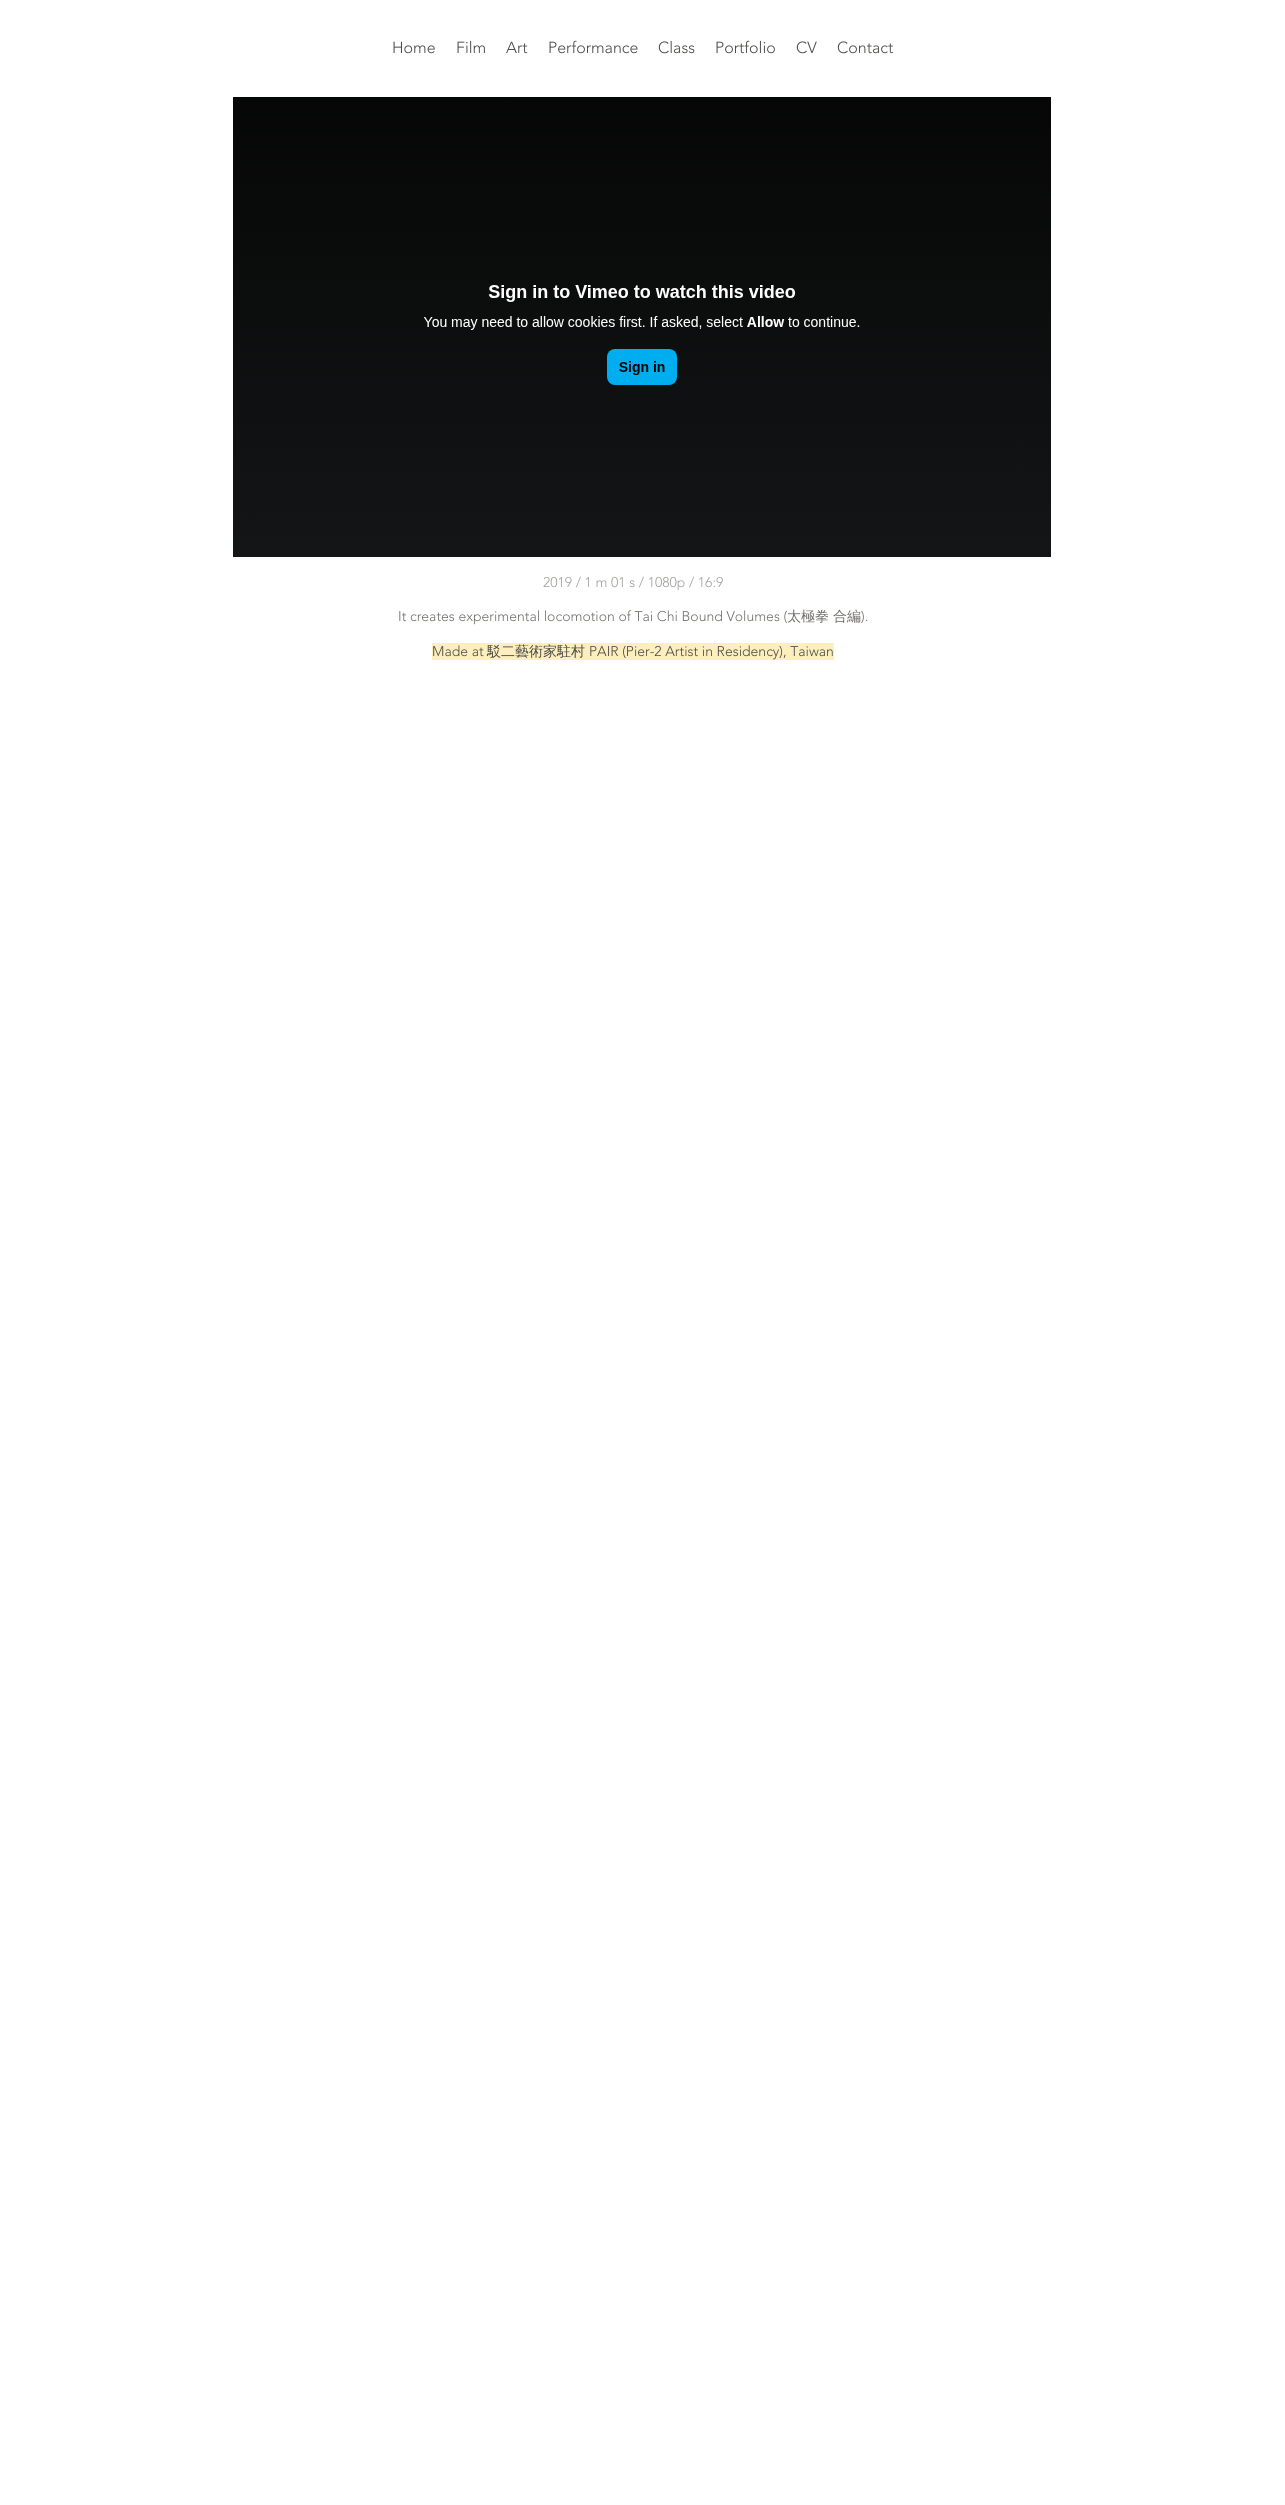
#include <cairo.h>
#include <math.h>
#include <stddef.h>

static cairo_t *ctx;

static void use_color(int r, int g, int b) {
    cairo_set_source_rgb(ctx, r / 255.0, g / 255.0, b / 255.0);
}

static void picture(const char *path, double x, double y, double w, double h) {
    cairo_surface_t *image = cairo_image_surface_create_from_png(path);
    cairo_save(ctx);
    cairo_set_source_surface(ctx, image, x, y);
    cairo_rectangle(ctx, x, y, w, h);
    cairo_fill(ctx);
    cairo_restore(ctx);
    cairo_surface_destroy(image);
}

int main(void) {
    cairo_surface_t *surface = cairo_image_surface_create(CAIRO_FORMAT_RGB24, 1285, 2505);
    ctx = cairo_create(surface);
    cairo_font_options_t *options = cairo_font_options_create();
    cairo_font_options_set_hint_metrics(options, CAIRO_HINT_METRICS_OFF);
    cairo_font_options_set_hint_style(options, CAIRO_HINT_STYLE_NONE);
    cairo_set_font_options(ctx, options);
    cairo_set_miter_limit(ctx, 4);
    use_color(255, 255, 255);
    cairo_paint(ctx);
    cairo_select_font_face(ctx, "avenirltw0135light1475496 Light", CAIRO_FONT_SLANT_NORMAL, CAIRO_FONT_WEIGHT_NORMAL);
    cairo_set_font_size(ctx, 16);
    use_color(75, 74, 71);
    cairo_move_to(ctx, 392, 53);
    cairo_show_text(ctx, "Home");
    cairo_move_to(ctx, 456, 53);
    cairo_show_text(ctx, "Film");
    cairo_move_to(ctx, 506, 53);
    cairo_show_text(ctx, "Art");
    cairo_move_to(ctx, 548, 53);
    cairo_show_text(ctx, "Performance");
    cairo_move_to(ctx, 658, 53);
    cairo_show_text(ctx, "Class");
    cairo_move_to(ctx, 715, 53);
    cairo_show_text(ctx, "Portfolio");
    cairo_move_to(ctx, 796, 53);
    cairo_show_text(ctx, "CV");
    cairo_move_to(ctx, 837, 53);
    cairo_show_text(ctx, "Contact");
    picture("img1.png", 233, 97, 818, 460);
    cairo_set_font_size(ctx, 14);
    use_color(160, 159, 156);
    cairo_move_to(ctx, 543, 587);
    cairo_show_text(ctx, "2019 / 1 m 01 s / 1080p / 16:9");
    use_color(113, 111, 107);
    cairo_move_to(ctx, 398, 621);
    cairo_show_text(ctx, "It creates experimental locomotion of Tai Chi Bound Volumes (");
    cairo_select_font_face(ctx, "WenQuanYi Zen Hei Medium", CAIRO_FONT_SLANT_NORMAL, CAIRO_FONT_WEIGHT_NORMAL);
    cairo_move_to(ctx, 787, 621);
    cairo_show_text(ctx, "太極拳");
    cairo_move_to(ctx, 833, 621);
    cairo_show_text(ctx, "合編");
    cairo_select_font_face(ctx, "avenirltw0135light1475496 Light", CAIRO_FONT_SLANT_NORMAL, CAIRO_FONT_WEIGHT_NORMAL);
    cairo_move_to(ctx, 861, 621);
    cairo_show_text(ctx, ").");
    use_color(252, 239, 189);
    cairo_rectangle(ctx, 432, 643, 402, 17);
    cairo_fill(ctx);
    use_color(75, 74, 71);
    cairo_move_to(ctx, 432, 656);
    cairo_show_text(ctx, "Made at");
    cairo_select_font_face(ctx, "WenQuanYi Zen Hei Medium", CAIRO_FONT_SLANT_NORMAL, CAIRO_FONT_WEIGHT_NORMAL);
    cairo_move_to(ctx, 487, 656);
    cairo_show_text(ctx, "駁二藝術家駐村");
    cairo_select_font_face(ctx, "avenirltw0135light1475496 Light", CAIRO_FONT_SLANT_NORMAL, CAIRO_FONT_WEIGHT_NORMAL);
    cairo_move_to(ctx, 589, 656);
    cairo_show_text(ctx, "PAIR (Pier-2 Artist in Residency), Taiwan");
    cairo_surface_write_to_png(surface, "result.png");
    cairo_font_options_destroy(options);
    cairo_destroy(ctx);
    cairo_surface_destroy(surface);
    return 0;
}
